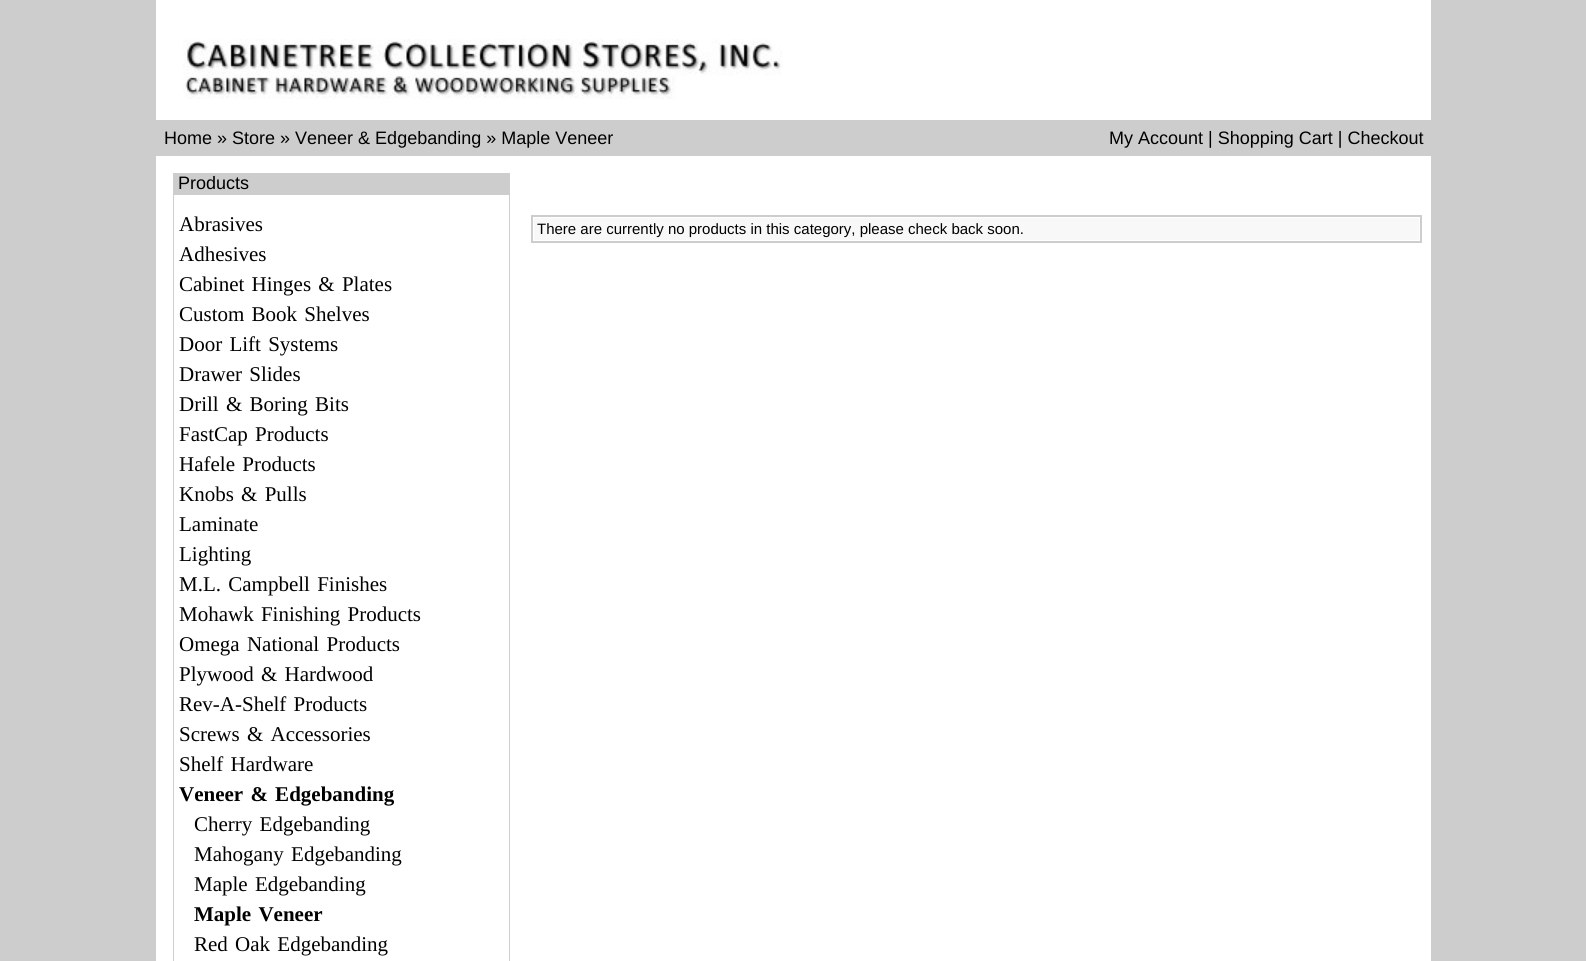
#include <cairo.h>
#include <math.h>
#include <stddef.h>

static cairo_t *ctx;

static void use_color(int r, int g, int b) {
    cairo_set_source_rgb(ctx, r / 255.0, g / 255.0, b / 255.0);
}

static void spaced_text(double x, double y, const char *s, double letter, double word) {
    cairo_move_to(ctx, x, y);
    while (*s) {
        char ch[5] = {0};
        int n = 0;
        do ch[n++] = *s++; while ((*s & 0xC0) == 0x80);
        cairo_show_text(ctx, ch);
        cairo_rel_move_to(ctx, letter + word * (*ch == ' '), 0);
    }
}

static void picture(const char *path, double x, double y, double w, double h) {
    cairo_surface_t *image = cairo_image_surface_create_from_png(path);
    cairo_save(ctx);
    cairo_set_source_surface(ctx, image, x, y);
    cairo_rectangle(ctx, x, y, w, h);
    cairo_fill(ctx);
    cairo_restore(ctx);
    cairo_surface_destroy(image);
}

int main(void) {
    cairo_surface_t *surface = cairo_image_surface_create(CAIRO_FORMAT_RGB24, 1586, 961);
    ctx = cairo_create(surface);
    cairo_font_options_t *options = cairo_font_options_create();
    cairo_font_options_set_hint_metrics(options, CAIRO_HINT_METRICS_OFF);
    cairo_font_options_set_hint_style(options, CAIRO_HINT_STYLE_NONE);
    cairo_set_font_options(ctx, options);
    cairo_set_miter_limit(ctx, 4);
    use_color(205, 205, 205);
    cairo_paint(ctx);
    use_color(255, 255, 255);
    cairo_rectangle(ctx, 156, 0, 1275, 961);
    cairo_fill(ctx);
    picture("img1.png", 183, 39, 600, 60);
    use_color(205, 205, 205);
    cairo_rectangle(ctx, 156, 120, 1275, 36);
    cairo_fill(ctx);
    cairo_select_font_face(ctx, "Liberation Sans", CAIRO_FONT_SLANT_NORMAL, CAIRO_FONT_WEIGHT_NORMAL);
    cairo_set_font_size(ctx, 18);
    use_color(0, 0, 0);
    cairo_move_to(ctx, 164, 144);
    cairo_show_text(ctx, "Home » Store » Veneer & Edgebanding » Maple Veneer");
    cairo_move_to(ctx, 1109, 144);
    cairo_show_text(ctx, "My Account | Shopping Cart | Checkout");
    use_color(205, 205, 205);
    cairo_rectangle(ctx, 173, 173, 337, 788);
    cairo_fill(ctx);
    use_color(0, 0, 0);
    cairo_move_to(ctx, 178, 189);
    cairo_show_text(ctx, "Products");
    use_color(255, 255, 255);
    cairo_rectangle(ctx, 174, 195, 335, 766);
    cairo_fill(ctx);
    cairo_select_font_face(ctx, "Liberation Serif", CAIRO_FONT_SLANT_NORMAL, CAIRO_FONT_WEIGHT_NORMAL);
    cairo_set_font_size(ctx, 21);
    use_color(0, 0, 0);
    cairo_move_to(ctx, 179, 231);
    cairo_show_text(ctx, "Abrasives");
    cairo_move_to(ctx, 179, 261);
    cairo_show_text(ctx, "Adhesives");
    spaced_text(179, 291, "Cabinet Hinges & Plates", 0, 2);
    spaced_text(179, 321, "Custom Book Shelves", 0, 2);
    spaced_text(179, 351, "Door Lift Systems", 0, 2);
    spaced_text(179, 381, "Drawer Slides", 0, 2);
    spaced_text(179, 411, "Drill & Boring Bits", 0, 2);
    spaced_text(179, 441, "FastCap Products", 0, 2);
    spaced_text(179, 471, "Hafele Products", 0, 2);
    spaced_text(179, 501, "Knobs & Pulls", 0, 2);
    cairo_move_to(ctx, 179, 531);
    cairo_show_text(ctx, "Laminate");
    cairo_move_to(ctx, 179, 561);
    cairo_show_text(ctx, "Lighting");
    spaced_text(179, 591, "M.L. Campbell Finishes", 0, 2);
    spaced_text(179, 621, "Mohawk Finishing Products", 0, 2);
    spaced_text(179, 651, "Omega National Products", 0, 2);
    spaced_text(179, 681, "Plywood & Hardwood", 0, 2);
    spaced_text(179, 711, "Rev-A-Shelf Products", 0, 2);
    spaced_text(179, 741, "Screws & Accessories", 0, 2);
    spaced_text(179, 771, "Shelf Hardware", 0, 2);
    cairo_select_font_face(ctx, "Liberation Serif", CAIRO_FONT_SLANT_NORMAL, CAIRO_FONT_WEIGHT_BOLD);
    spaced_text(179, 801, "Veneer & Edgebanding", 0, 2);
    cairo_select_font_face(ctx, "Liberation Serif", CAIRO_FONT_SLANT_NORMAL, CAIRO_FONT_WEIGHT_NORMAL);
    spaced_text(194, 831, "Cherry Edgebanding", 0, 2);
    spaced_text(194, 861, "Mahogany Edgebanding", 0, 2);
    spaced_text(194, 891, "Maple Edgebanding", 0, 2);
    cairo_select_font_face(ctx, "Liberation Serif", CAIRO_FONT_SLANT_NORMAL, CAIRO_FONT_WEIGHT_BOLD);
    spaced_text(194, 921, "Maple Veneer", 0, 2);
    cairo_select_font_face(ctx, "Liberation Serif", CAIRO_FONT_SLANT_NORMAL, CAIRO_FONT_WEIGHT_NORMAL);
    spaced_text(194, 951, "Red Oak Edgebanding", 0, 2);
    cairo_rectangle(ctx, 532, 216, 889, 26);
    use_color(205, 205, 205);
    cairo_stroke(ctx);
    use_color(248, 248, 249);
    cairo_rectangle(ctx, 534, 218, 885, 22);
    cairo_fill(ctx);
    cairo_select_font_face(ctx, "Liberation Sans", CAIRO_FONT_SLANT_NORMAL, CAIRO_FONT_WEIGHT_NORMAL);
    cairo_set_font_size(ctx, 15);
    use_color(0, 0, 0);
    cairo_move_to(ctx, 537, 234);
    cairo_show_text(ctx, "There are currently no products in this category, please check back soon.");
    cairo_surface_write_to_png(surface, "result.png");
    cairo_font_options_destroy(options);
    cairo_destroy(ctx);
    cairo_surface_destroy(surface);
    return 0;
}
